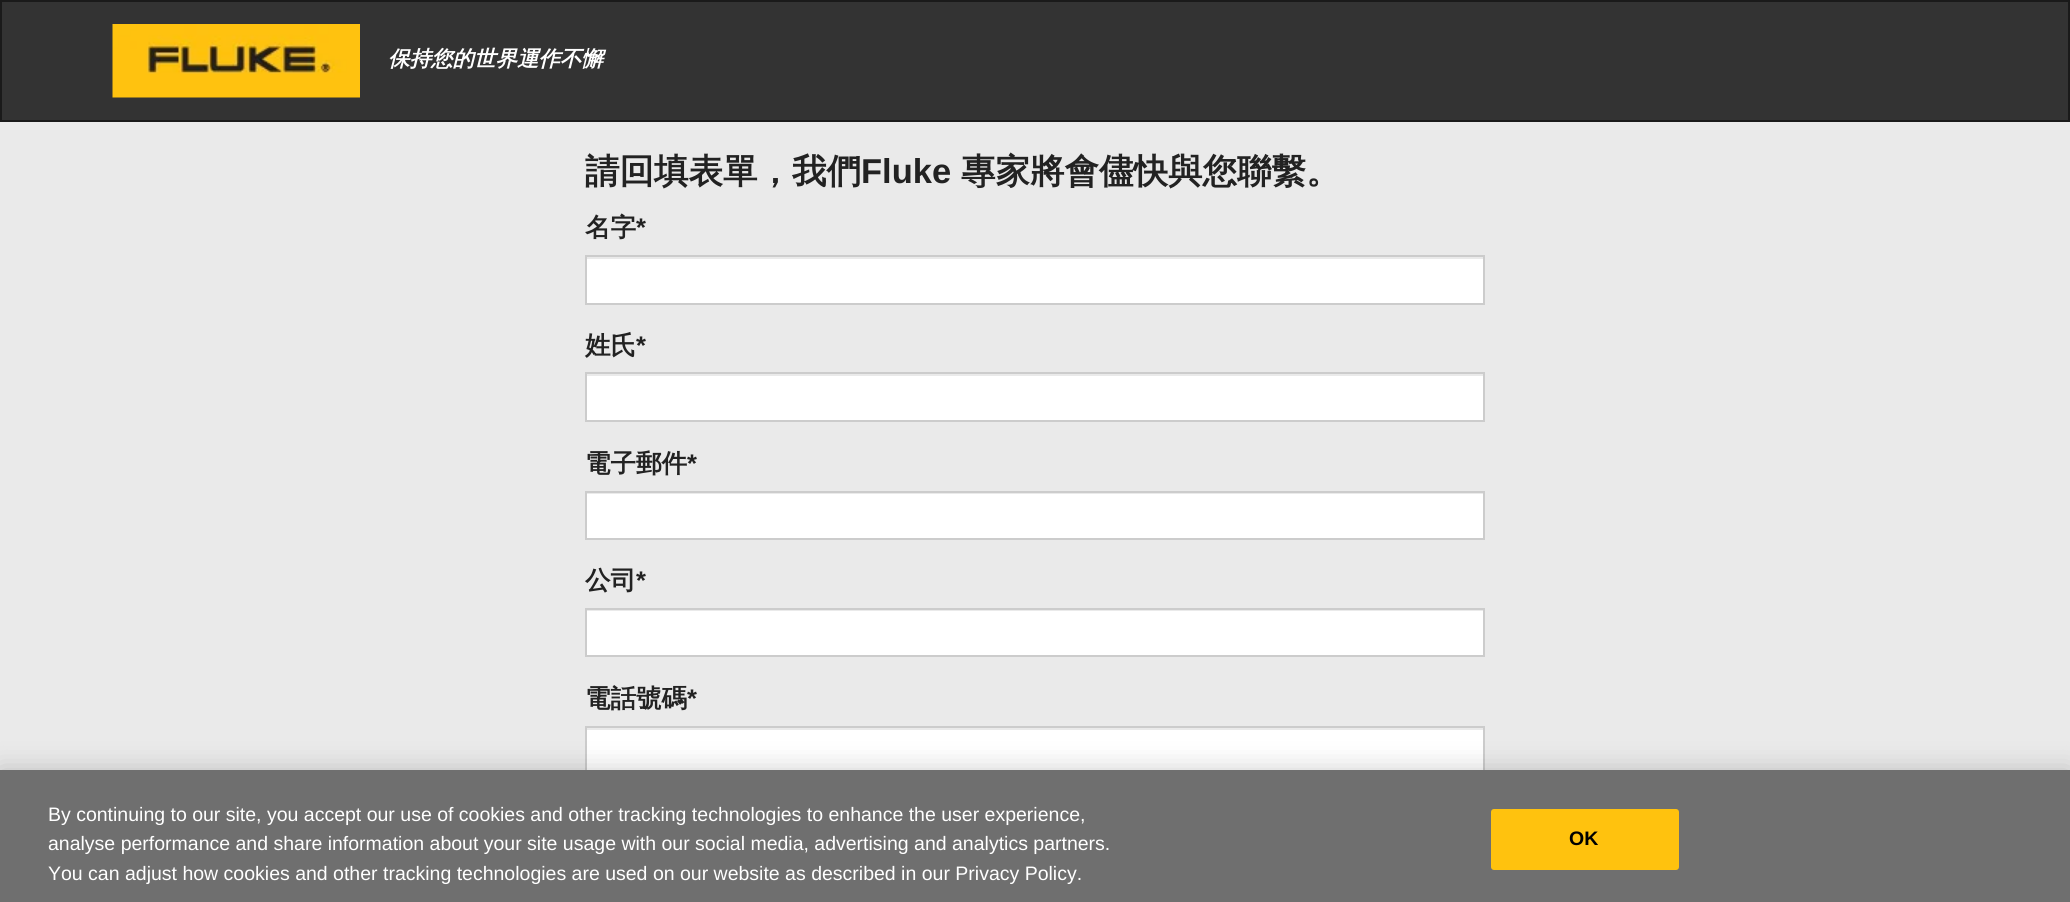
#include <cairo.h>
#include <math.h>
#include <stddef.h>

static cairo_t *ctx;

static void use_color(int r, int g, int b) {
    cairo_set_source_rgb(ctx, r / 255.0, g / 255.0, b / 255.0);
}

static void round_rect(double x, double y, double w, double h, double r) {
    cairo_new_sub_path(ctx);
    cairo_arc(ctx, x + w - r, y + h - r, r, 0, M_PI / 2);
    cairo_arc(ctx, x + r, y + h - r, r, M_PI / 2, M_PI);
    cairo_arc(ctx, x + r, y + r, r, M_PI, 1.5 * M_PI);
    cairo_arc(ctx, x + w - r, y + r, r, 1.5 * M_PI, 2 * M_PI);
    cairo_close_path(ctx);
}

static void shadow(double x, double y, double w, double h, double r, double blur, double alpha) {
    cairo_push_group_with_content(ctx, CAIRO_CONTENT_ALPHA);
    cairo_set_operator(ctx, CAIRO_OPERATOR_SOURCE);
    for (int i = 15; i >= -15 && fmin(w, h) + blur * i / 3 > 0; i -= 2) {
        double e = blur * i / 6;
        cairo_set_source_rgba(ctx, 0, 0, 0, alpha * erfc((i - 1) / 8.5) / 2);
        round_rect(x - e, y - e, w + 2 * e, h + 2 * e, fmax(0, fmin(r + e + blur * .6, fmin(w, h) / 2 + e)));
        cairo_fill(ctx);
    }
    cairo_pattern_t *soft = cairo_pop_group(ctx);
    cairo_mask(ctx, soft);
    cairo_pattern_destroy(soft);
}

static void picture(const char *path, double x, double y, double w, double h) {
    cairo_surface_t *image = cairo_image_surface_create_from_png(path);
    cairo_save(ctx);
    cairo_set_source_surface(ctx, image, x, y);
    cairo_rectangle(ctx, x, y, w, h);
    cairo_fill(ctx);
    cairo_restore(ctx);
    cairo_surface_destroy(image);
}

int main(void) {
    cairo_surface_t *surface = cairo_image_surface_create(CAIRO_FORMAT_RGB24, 2070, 902);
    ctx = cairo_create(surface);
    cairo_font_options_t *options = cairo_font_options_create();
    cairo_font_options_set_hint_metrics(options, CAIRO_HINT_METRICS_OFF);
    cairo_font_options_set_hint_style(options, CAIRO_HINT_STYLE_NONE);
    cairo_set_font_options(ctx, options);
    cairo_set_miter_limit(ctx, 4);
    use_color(234, 234, 234);
    cairo_paint(ctx);
    use_color(51, 51, 51);
    cairo_rectangle(ctx, 1, 1, 2068, 120);
    cairo_fill_preserve(ctx);
    use_color(26, 26, 26);
    cairo_stroke(ctx);
    picture("img1.png", 112, 24, 248, 74);
    cairo_select_font_face(ctx, "WenQuanYi Zen Hei", CAIRO_FONT_SLANT_ITALIC, CAIRO_FONT_WEIGHT_BOLD);
    cairo_set_font_size(ctx, 21.5);
    use_color(255, 255, 255);
    cairo_move_to(ctx, 388, 66);
    cairo_show_text(ctx, "保持您的世界運作不懈");
    cairo_select_font_face(ctx, "WenQuanYi Zen Hei", CAIRO_FONT_SLANT_NORMAL, CAIRO_FONT_WEIGHT_BOLD);
    cairo_set_font_size(ctx, 34.5);
    use_color(34, 34, 34);
    cairo_move_to(ctx, 585, 183);
    cairo_show_text(ctx, "請回填表單，我們");
    cairo_select_font_face(ctx, "Liberation Sans", CAIRO_FONT_SLANT_NORMAL, CAIRO_FONT_WEIGHT_BOLD);
    cairo_move_to(ctx, 861, 183);
    cairo_show_text(ctx, "Fluke");
    cairo_select_font_face(ctx, "WenQuanYi Zen Hei", CAIRO_FONT_SLANT_NORMAL, CAIRO_FONT_WEIGHT_BOLD);
    cairo_move_to(ctx, 961, 183);
    cairo_show_text(ctx, "專家將會儘快與您聯繫。");
    cairo_set_font_size(ctx, 25.5);
    cairo_move_to(ctx, 585, 236);
    cairo_show_text(ctx, "名字");
    cairo_select_font_face(ctx, "Liberation Sans", CAIRO_FONT_SLANT_NORMAL, CAIRO_FONT_WEIGHT_BOLD);
    cairo_move_to(ctx, 636, 236);
    cairo_show_text(ctx, "*");
    use_color(255, 255, 255);
    cairo_rectangle(ctx, 587, 259, 896, 44);
    cairo_fill(ctx);
    cairo_rectangle(ctx, 586, 256, 898, 48);
    use_color(204, 204, 204);
    cairo_stroke(ctx);
    cairo_select_font_face(ctx, "WenQuanYi Zen Hei", CAIRO_FONT_SLANT_NORMAL, CAIRO_FONT_WEIGHT_BOLD);
    use_color(34, 34, 34);
    cairo_move_to(ctx, 585, 354);
    cairo_show_text(ctx, "姓氏");
    cairo_select_font_face(ctx, "Liberation Sans", CAIRO_FONT_SLANT_NORMAL, CAIRO_FONT_WEIGHT_BOLD);
    cairo_move_to(ctx, 636, 354);
    cairo_show_text(ctx, "*");
    use_color(255, 255, 255);
    cairo_rectangle(ctx, 587, 376, 896, 44);
    cairo_fill(ctx);
    cairo_rectangle(ctx, 586, 373, 898, 48);
    use_color(204, 204, 204);
    cairo_stroke(ctx);
    cairo_select_font_face(ctx, "WenQuanYi Zen Hei", CAIRO_FONT_SLANT_NORMAL, CAIRO_FONT_WEIGHT_BOLD);
    use_color(34, 34, 34);
    cairo_move_to(ctx, 585, 472);
    cairo_show_text(ctx, "電子郵件");
    cairo_select_font_face(ctx, "Liberation Sans", CAIRO_FONT_SLANT_NORMAL, CAIRO_FONT_WEIGHT_BOLD);
    cairo_move_to(ctx, 687, 472);
    cairo_show_text(ctx, "*");
    use_color(255, 255, 255);
    cairo_rectangle(ctx, 587, 494, 896, 44);
    cairo_fill(ctx);
    cairo_rectangle(ctx, 586, 492, 898, 47);
    use_color(204, 204, 204);
    cairo_stroke(ctx);
    cairo_select_font_face(ctx, "WenQuanYi Zen Hei", CAIRO_FONT_SLANT_NORMAL, CAIRO_FONT_WEIGHT_BOLD);
    use_color(34, 34, 34);
    cairo_move_to(ctx, 585, 589);
    cairo_show_text(ctx, "公司");
    cairo_select_font_face(ctx, "Liberation Sans", CAIRO_FONT_SLANT_NORMAL, CAIRO_FONT_WEIGHT_BOLD);
    cairo_move_to(ctx, 636, 589);
    cairo_show_text(ctx, "*");
    use_color(255, 255, 255);
    cairo_rectangle(ctx, 587, 611, 896, 44);
    cairo_fill(ctx);
    cairo_rectangle(ctx, 586, 609, 898, 47);
    use_color(204, 204, 204);
    cairo_stroke(ctx);
    cairo_select_font_face(ctx, "WenQuanYi Zen Hei", CAIRO_FONT_SLANT_NORMAL, CAIRO_FONT_WEIGHT_BOLD);
    use_color(34, 34, 34);
    cairo_move_to(ctx, 585, 707);
    cairo_show_text(ctx, "電話號碼");
    cairo_select_font_face(ctx, "Liberation Sans", CAIRO_FONT_SLANT_NORMAL, CAIRO_FONT_WEIGHT_BOLD);
    cairo_move_to(ctx, 687, 707);
    cairo_show_text(ctx, "*");
    use_color(255, 255, 255);
    cairo_rectangle(ctx, 587, 730, 896, 40);
    cairo_fill(ctx);
    cairo_rectangle(ctx, 586, 727, 898, 48);
    use_color(204, 204, 204);
    cairo_stroke(ctx);
    use_color(0, 0, 0);
    shadow(0, 770, 2070, 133, 0, 13.5, 0.2);
    use_color(111, 111, 111);
    cairo_rectangle(ctx, 0, 770, 2070, 132);
    cairo_fill(ctx);
    cairo_select_font_face(ctx, "Liberation Sans", CAIRO_FONT_SLANT_NORMAL, CAIRO_FONT_WEIGHT_NORMAL);
    cairo_set_font_size(ctx, 19.5);
    use_color(255, 255, 255);
    cairo_move_to(ctx, 48, 821);
    cairo_show_text(ctx, "By continuing to our site, you accept our use of cookies and other tracking technologies to enhance the user experience,");
    cairo_move_to(ctx, 48, 850);
    cairo_show_text(ctx, "analyse performance and share information about your site usage with our social media, advertising and analytics partners.");
    cairo_move_to(ctx, 48, 880);
    cairo_show_text(ctx, "You can adjust how cookies and other tracking technologies are used on our website as described in our Privacy Policy.");
    use_color(255, 194, 14);
    round_rect(1492, 810, 186, 59, 2);
    cairo_fill_preserve(ctx);
    cairo_stroke(ctx);
    cairo_select_font_face(ctx, "Liberation Sans", CAIRO_FONT_SLANT_NORMAL, CAIRO_FONT_WEIGHT_BOLD);
    use_color(0, 0, 0);
    cairo_move_to(ctx, 1569, 845);
    cairo_show_text(ctx, "OK");
    cairo_surface_write_to_png(surface, "result.png");
    cairo_font_options_destroy(options);
    cairo_destroy(ctx);
    cairo_surface_destroy(surface);
    return 0;
}
